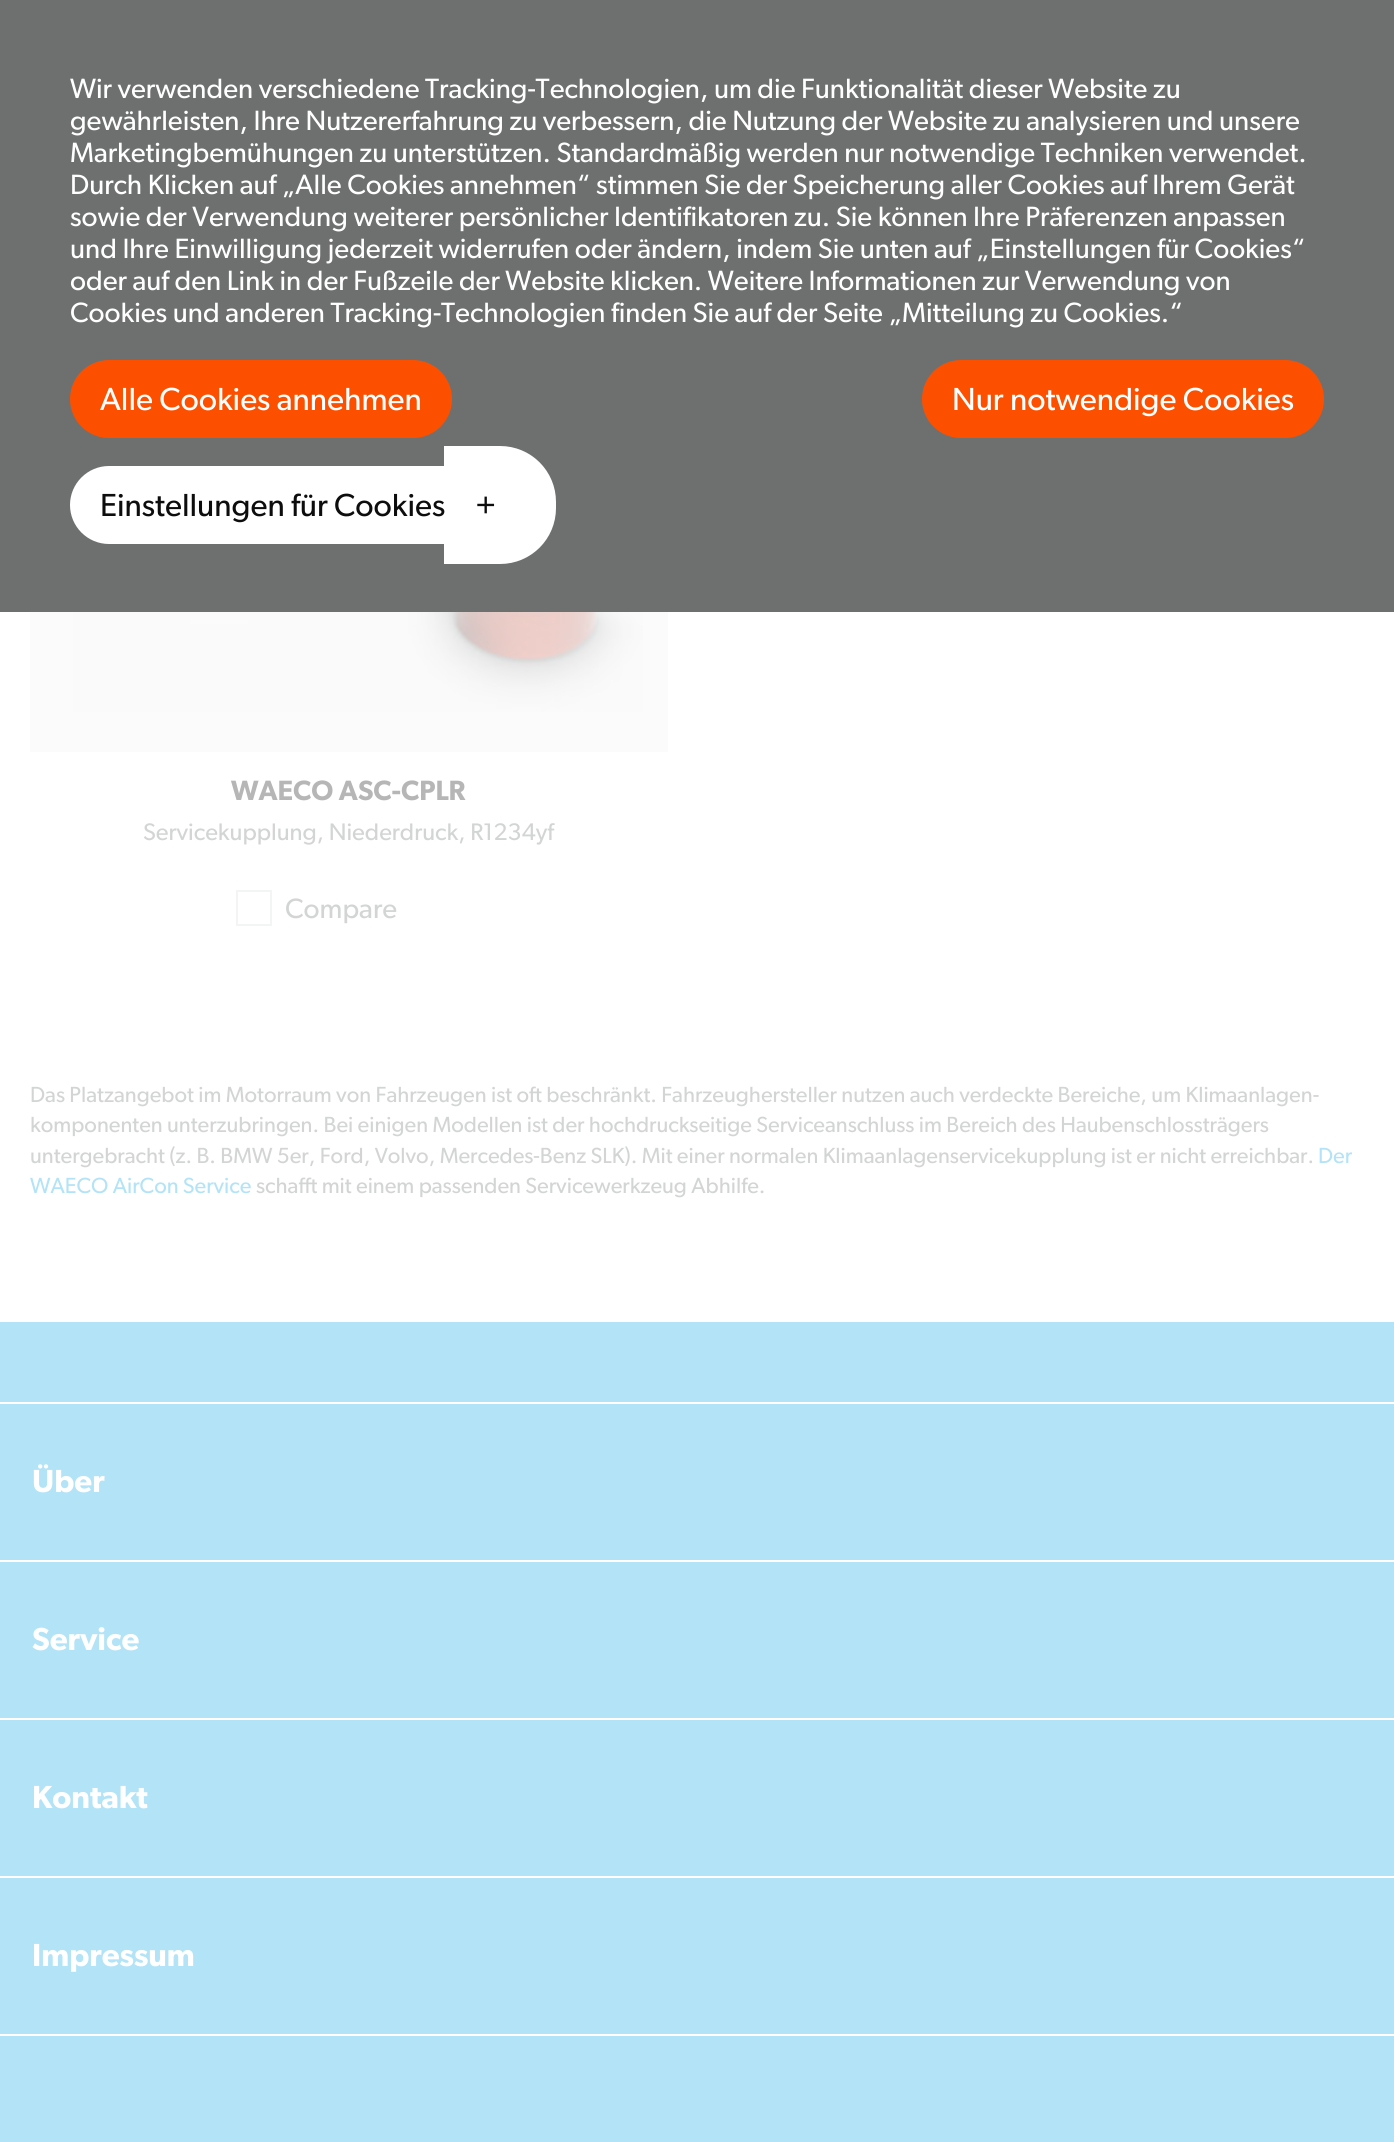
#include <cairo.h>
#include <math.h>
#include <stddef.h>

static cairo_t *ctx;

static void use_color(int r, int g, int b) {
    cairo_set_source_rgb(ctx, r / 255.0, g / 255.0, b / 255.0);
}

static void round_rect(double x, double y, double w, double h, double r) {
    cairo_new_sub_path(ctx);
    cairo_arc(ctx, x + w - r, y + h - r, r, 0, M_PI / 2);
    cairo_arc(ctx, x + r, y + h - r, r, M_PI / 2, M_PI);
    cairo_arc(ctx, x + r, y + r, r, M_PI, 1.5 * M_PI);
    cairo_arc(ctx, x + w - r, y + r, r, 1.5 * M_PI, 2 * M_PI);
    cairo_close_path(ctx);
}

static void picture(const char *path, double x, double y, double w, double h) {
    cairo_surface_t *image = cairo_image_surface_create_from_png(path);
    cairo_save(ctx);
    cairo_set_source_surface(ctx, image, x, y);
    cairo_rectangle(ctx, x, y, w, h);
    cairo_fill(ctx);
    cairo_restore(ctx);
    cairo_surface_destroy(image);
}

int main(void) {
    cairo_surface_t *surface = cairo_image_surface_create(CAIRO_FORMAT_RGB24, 1394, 2142);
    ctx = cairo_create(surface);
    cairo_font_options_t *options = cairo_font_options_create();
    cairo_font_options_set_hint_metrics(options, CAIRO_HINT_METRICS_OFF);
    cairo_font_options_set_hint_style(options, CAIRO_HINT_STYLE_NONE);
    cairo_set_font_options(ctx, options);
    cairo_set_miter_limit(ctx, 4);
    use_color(255, 255, 255);
    cairo_paint(ctx);
    use_color(109, 112, 111);
    cairo_rectangle(ctx, 0, 0, 1394, 612);
    cairo_fill(ctx);
    cairo_select_font_face(ctx, "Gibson", CAIRO_FONT_SLANT_NORMAL, CAIRO_FONT_WEIGHT_NORMAL);
    cairo_set_font_size(ctx, 28);
    use_color(255, 255, 255);
    cairo_move_to(ctx, 70, 98);
    cairo_show_text(ctx, "Wir verwenden verschiedene Tracking-Technologien, um die Funktionalität dieser Website zu");
    cairo_move_to(ctx, 70, 130);
    cairo_show_text(ctx, "gewährleisten, Ihre Nutzererfahrung zu verbessern, die Nutzung der Website zu analysieren und unsere");
    cairo_move_to(ctx, 70, 162);
    cairo_show_text(ctx, "Marketingbemühungen zu unterstützen. Standardmäßig werden nur notwendige Techniken verwendet.");
    cairo_move_to(ctx, 70, 194);
    cairo_show_text(ctx, "Durch Klicken auf „Alle Cookies annehmen“ stimmen Sie der Speicherung aller Cookies auf Ihrem Gerät");
    cairo_move_to(ctx, 70, 226);
    cairo_show_text(ctx, "sowie der Verwendung weiterer persönlicher Identifikatoren zu. Sie können Ihre Präferenzen anpassen");
    cairo_move_to(ctx, 70, 258);
    cairo_show_text(ctx, "und Ihre Einwilligung jederzeit widerrufen oder ändern, indem Sie unten auf „Einstellungen für Cookies“");
    cairo_move_to(ctx, 70, 290);
    cairo_show_text(ctx, "oder auf den Link in der Fußzeile der Website klicken. Weitere Informationen zur Verwendung von");
    cairo_move_to(ctx, 70, 322);
    cairo_show_text(ctx, "Cookies und anderen Tracking-Technologien finden Sie auf der Seite „Mitteilung zu Cookies.“");
    use_color(252, 80, 0);
    round_rect(70, 360, 382, 78, 39);
    cairo_fill(ctx);
    cairo_set_font_size(ctx, 32);
    use_color(255, 255, 255);
    cairo_move_to(ctx, 100, 410);
    cairo_show_text(ctx, "Alle Cookies annehmen");
    use_color(252, 80, 0);
    round_rect(922, 360, 402, 78, 39);
    cairo_fill(ctx);
    use_color(255, 255, 255);
    cairo_move_to(ctx, 952, 410);
    cairo_show_text(ctx, "Nur notwendige Cookies");
    cairo_new_path(ctx);
    cairo_move_to(ctx, 109, 466);
    cairo_line_to(ctx, 444, 466);
    cairo_line_to(ctx, 444, 544);
    cairo_line_to(ctx, 109, 544);
    cairo_curve_to(ctx, 87.5, 544, 70, 526.5, 70, 505);
    cairo_curve_to(ctx, 70, 483.5, 87.5, 466, 109, 466);
    cairo_close_path(ctx);
    cairo_fill(ctx);
    cairo_new_path(ctx);
    cairo_move_to(ctx, 444, 446);
    cairo_line_to(ctx, 500, 446);
    cairo_curve_to(ctx, 531, 446, 556, 471, 556, 502);
    cairo_line_to(ctx, 556, 508);
    cairo_curve_to(ctx, 556, 539, 531, 564, 500, 564);
    cairo_line_to(ctx, 444, 564);
    cairo_close_path(ctx);
    cairo_fill(ctx);
    use_color(13, 13, 13);
    cairo_move_to(ctx, 100, 516);
    cairo_show_text(ctx, "Einstellungen für Cookies");
    cairo_move_to(ctx, 475, 516);
    cairo_show_text(ctx, "+");
    use_color(251, 251, 251);
    cairo_rectangle(ctx, 30, 612, 638, 140);
    cairo_fill(ctx);
    picture("img1.png", 73, 612, 570, 100);
    cairo_select_font_face(ctx, "Gibson SemiBold", CAIRO_FONT_SLANT_NORMAL, CAIRO_FONT_WEIGHT_NORMAL);
    cairo_set_font_size(ctx, 28);
    use_color(182, 182, 182);
    cairo_move_to(ctx, 231, 800);
    cairo_show_text(ctx, "WAECO ASC-CPLR");
    cairo_select_font_face(ctx, "Gibson", CAIRO_FONT_SLANT_NORMAL, CAIRO_FONT_WEIGHT_NORMAL);
    cairo_set_font_size(ctx, 24);
    use_color(211, 212, 212);
    cairo_move_to(ctx, 143, 840);
    cairo_show_text(ctx, "Servicekupplung, Niederdruck, R1234yf");
    cairo_rectangle(ctx, 237, 891, 34, 34);
    use_color(243, 244, 244);
    cairo_stroke(ctx);
    cairo_set_font_size(ctx, 28);
    use_color(211, 212, 212);
    cairo_move_to(ctx, 285, 918);
    cairo_show_text(ctx, "Compare");
    cairo_set_font_size(ctx, 22);
    cairo_move_to(ctx, 30, 1102);
    cairo_show_text(ctx, "Das Platzangebot im Motorraum von Fahrzeugen ist oft beschränkt. Fahrzeughersteller nutzen auch verdeckte Bereiche, um Klimaanlagen-");
    cairo_move_to(ctx, 30, 1132);
    cairo_show_text(ctx, "komponenten unterzubringen. Bei einigen Modellen ist der hochdruckseitige Serviceanschluss im Bereich des Haubenschlossträgers");
    cairo_move_to(ctx, 30, 1163);
    cairo_show_text(ctx, "untergebracht (z. B. BMW 5er, Ford, Volvo, Mercedes-Benz SLK). Mit einer normalen Klimaanlagenservicekupplung ist er nicht erreichbar.");
    use_color(179, 227, 246);
    cairo_move_to(ctx, 1318, 1163);
    cairo_show_text(ctx, "Der");
    cairo_move_to(ctx, 30, 1193);
    cairo_show_text(ctx, "WAECO AirCon Service");
    use_color(211, 212, 212);
    cairo_move_to(ctx, 256, 1193);
    cairo_show_text(ctx, "schafft mit einem passenden Servicewerkzeug Abhilfe.");
    use_color(179, 227, 246);
    cairo_rectangle(ctx, 0, 1322, 1394, 820);
    cairo_fill(ctx);
    use_color(255, 255, 255);
    cairo_rectangle(ctx, 0, 1402, 1394, 2);
    cairo_fill(ctx);
    cairo_rectangle(ctx, 0, 1560, 1394, 2);
    cairo_fill(ctx);
    cairo_select_font_face(ctx, "Gibson SemiBold", CAIRO_FONT_SLANT_NORMAL, CAIRO_FONT_WEIGHT_NORMAL);
    cairo_set_font_size(ctx, 32);
    cairo_move_to(ctx, 32, 1492);
    cairo_show_text(ctx, "Über");
    cairo_rectangle(ctx, 0, 1718, 1394, 2);
    cairo_fill(ctx);
    cairo_move_to(ctx, 32, 1650);
    cairo_show_text(ctx, "Service");
    cairo_rectangle(ctx, 0, 1876, 1394, 2);
    cairo_fill(ctx);
    cairo_move_to(ctx, 32, 1808);
    cairo_show_text(ctx, "Kontakt");
    cairo_rectangle(ctx, 0, 2034, 1394, 2);
    cairo_fill(ctx);
    cairo_move_to(ctx, 32, 1966);
    cairo_show_text(ctx, "Impressum");
    cairo_surface_write_to_png(surface, "result.png");
    cairo_font_options_destroy(options);
    cairo_destroy(ctx);
    cairo_surface_destroy(surface);
    return 0;
}
